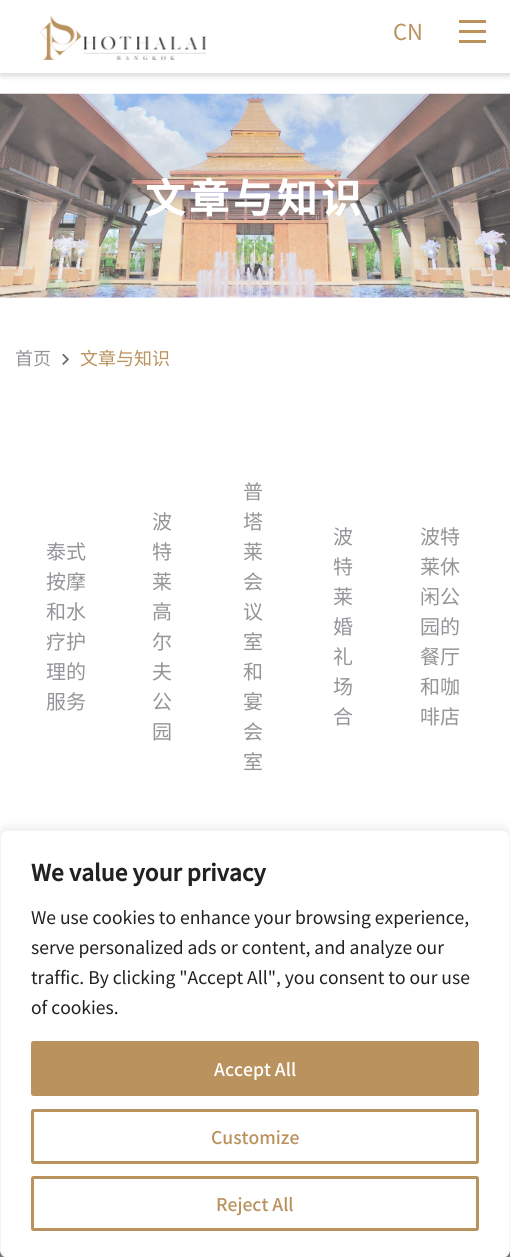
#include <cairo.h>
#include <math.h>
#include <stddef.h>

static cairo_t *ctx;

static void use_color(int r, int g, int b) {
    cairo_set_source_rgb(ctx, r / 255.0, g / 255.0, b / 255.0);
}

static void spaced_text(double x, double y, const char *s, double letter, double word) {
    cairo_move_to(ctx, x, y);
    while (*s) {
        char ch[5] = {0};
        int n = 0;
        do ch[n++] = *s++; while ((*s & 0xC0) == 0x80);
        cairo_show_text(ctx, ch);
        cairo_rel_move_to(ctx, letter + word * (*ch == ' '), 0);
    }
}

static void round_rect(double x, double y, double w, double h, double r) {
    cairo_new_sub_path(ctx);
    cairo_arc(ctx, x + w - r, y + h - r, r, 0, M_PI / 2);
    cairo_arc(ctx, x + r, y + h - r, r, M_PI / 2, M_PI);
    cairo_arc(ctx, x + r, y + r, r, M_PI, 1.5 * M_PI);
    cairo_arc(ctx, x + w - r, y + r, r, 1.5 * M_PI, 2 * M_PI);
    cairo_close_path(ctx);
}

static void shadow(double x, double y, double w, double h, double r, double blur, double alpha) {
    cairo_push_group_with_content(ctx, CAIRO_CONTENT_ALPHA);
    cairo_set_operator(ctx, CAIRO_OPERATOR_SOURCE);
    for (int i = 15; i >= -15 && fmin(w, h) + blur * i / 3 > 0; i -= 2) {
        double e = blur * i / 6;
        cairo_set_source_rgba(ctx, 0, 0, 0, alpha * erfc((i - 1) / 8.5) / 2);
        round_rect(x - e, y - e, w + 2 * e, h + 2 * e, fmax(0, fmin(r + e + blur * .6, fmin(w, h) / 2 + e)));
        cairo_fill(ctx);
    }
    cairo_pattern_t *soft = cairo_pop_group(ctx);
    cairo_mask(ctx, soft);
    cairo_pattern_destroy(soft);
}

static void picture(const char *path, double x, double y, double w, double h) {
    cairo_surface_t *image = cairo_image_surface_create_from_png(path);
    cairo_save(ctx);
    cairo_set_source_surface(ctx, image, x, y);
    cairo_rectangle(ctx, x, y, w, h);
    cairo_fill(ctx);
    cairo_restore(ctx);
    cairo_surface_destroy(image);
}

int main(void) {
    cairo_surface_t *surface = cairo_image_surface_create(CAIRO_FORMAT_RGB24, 510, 1257);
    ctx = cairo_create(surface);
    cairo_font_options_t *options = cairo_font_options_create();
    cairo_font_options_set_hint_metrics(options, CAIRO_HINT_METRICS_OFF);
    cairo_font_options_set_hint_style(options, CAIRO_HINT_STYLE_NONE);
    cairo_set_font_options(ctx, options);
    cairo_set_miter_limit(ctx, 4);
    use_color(255, 255, 255);
    cairo_paint(ctx);
    use_color(0, 0, 0);
    shadow(0, 1, 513, 75, 0, 3, 0.15);
    use_color(255, 255, 255);
    cairo_rectangle(ctx, 0, 0, 510, 73);
    cairo_fill(ctx);
    picture("img1.png", 40, 15, 167, 45);
    cairo_select_font_face(ctx, "Noto Sans SC", CAIRO_FONT_SLANT_NORMAL, CAIRO_FONT_WEIGHT_NORMAL);
    cairo_set_font_size(ctx, 22);
    use_color(186, 146, 94);
    cairo_move_to(ctx, 393, 40);
    cairo_show_text(ctx, "CN");
    cairo_rectangle(ctx, 459, 20, 27, 3);
    cairo_fill(ctx);
    cairo_rectangle(ctx, 459, 30, 27, 3);
    cairo_fill(ctx);
    cairo_rectangle(ctx, 459, 40, 27, 3);
    cairo_fill(ctx);
    picture("img2.png", 0, 93, 510, 205);
    cairo_select_font_face(ctx, "Noto Sans SC", CAIRO_FONT_SLANT_NORMAL, CAIRO_FONT_WEIGHT_BOLD);
    cairo_set_font_size(ctx, 40);
    use_color(255, 255, 255);
    spaced_text(145, 213, "文章与知识", 4, 0);
    cairo_select_font_face(ctx, "Noto Sans SC", CAIRO_FONT_SLANT_NORMAL, CAIRO_FONT_WEIGHT_NORMAL);
    cairo_set_font_size(ctx, 18);
    use_color(147, 149, 152);
    cairo_move_to(ctx, 15, 365);
    cairo_show_text(ctx, "首页");
    picture("img3.png", 62, 354, 7, 11);
    use_color(186, 146, 94);
    cairo_move_to(ctx, 80, 365);
    cairo_show_text(ctx, "文章与知识");
    cairo_set_font_size(ctx, 20);
    use_color(147, 149, 152);
    cairo_move_to(ctx, 46, 559);
    cairo_show_text(ctx, "泰式");
    cairo_move_to(ctx, 46, 589);
    cairo_show_text(ctx, "按摩");
    cairo_move_to(ctx, 46, 619);
    cairo_show_text(ctx, "和水");
    cairo_move_to(ctx, 46, 649);
    cairo_show_text(ctx, "疗护");
    cairo_move_to(ctx, 46, 679);
    cairo_show_text(ctx, "理的");
    cairo_move_to(ctx, 46, 709);
    cairo_show_text(ctx, "服务");
    cairo_move_to(ctx, 152, 529);
    cairo_show_text(ctx, "波");
    cairo_move_to(ctx, 152, 559);
    cairo_show_text(ctx, "特");
    cairo_move_to(ctx, 152, 589);
    cairo_show_text(ctx, "莱");
    cairo_move_to(ctx, 152, 619);
    cairo_show_text(ctx, "高");
    cairo_move_to(ctx, 152, 649);
    cairo_show_text(ctx, "尔");
    cairo_move_to(ctx, 152, 679);
    cairo_show_text(ctx, "夫");
    cairo_move_to(ctx, 152, 709);
    cairo_show_text(ctx, "公");
    cairo_move_to(ctx, 152, 739);
    cairo_show_text(ctx, "园");
    cairo_move_to(ctx, 243, 499);
    cairo_show_text(ctx, "普");
    cairo_move_to(ctx, 243, 529);
    cairo_show_text(ctx, "塔");
    cairo_move_to(ctx, 243, 559);
    cairo_show_text(ctx, "莱");
    cairo_move_to(ctx, 243, 589);
    cairo_show_text(ctx, "会");
    cairo_move_to(ctx, 243, 619);
    cairo_show_text(ctx, "议");
    cairo_move_to(ctx, 243, 649);
    cairo_show_text(ctx, "室");
    cairo_move_to(ctx, 243, 679);
    cairo_show_text(ctx, "和");
    cairo_move_to(ctx, 243, 709);
    cairo_show_text(ctx, "宴");
    cairo_move_to(ctx, 243, 739);
    cairo_show_text(ctx, "会");
    cairo_move_to(ctx, 243, 769);
    cairo_show_text(ctx, "室");
    cairo_move_to(ctx, 333, 544);
    cairo_show_text(ctx, "波");
    cairo_move_to(ctx, 333, 574);
    cairo_show_text(ctx, "特");
    cairo_move_to(ctx, 333, 604);
    cairo_show_text(ctx, "莱");
    cairo_move_to(ctx, 333, 634);
    cairo_show_text(ctx, "婚");
    cairo_move_to(ctx, 333, 664);
    cairo_show_text(ctx, "礼");
    cairo_move_to(ctx, 333, 694);
    cairo_show_text(ctx, "场");
    cairo_move_to(ctx, 333, 724);
    cairo_show_text(ctx, "合");
    cairo_move_to(ctx, 420, 544);
    cairo_show_text(ctx, "波特");
    cairo_move_to(ctx, 420, 574);
    cairo_show_text(ctx, "莱休");
    cairo_move_to(ctx, 420, 604);
    cairo_show_text(ctx, "闲公");
    cairo_move_to(ctx, 420, 634);
    cairo_show_text(ctx, "园的");
    cairo_move_to(ctx, 420, 664);
    cairo_show_text(ctx, "餐厅");
    cairo_move_to(ctx, 420, 694);
    cairo_show_text(ctx, "和咖");
    cairo_move_to(ctx, 420, 724);
    cairo_show_text(ctx, "啡店");
    use_color(94, 119, 115);
    cairo_rectangle(ctx, 0, 1250, 510, 7);
    cairo_fill(ctx);
    use_color(172, 171, 171);
    shadow(0, 829, 510, 427, 8, 6, 0.3);
    use_color(255, 255, 255);
    round_rect(0.5, 830.5, 509, 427, 7.5);
    cairo_fill_preserve(ctx);
    use_color(244, 244, 244);
    cairo_set_line_width(ctx, 1);
    cairo_stroke(ctx);
    cairo_select_font_face(ctx, "Noto Sans SC", CAIRO_FONT_SLANT_NORMAL, CAIRO_FONT_WEIGHT_BOLD);
    cairo_set_font_size(ctx, 22.5);
    use_color(33, 33, 33);
    cairo_move_to(ctx, 31, 881);
    cairo_show_text(ctx, "We value your privacy");
    cairo_select_font_face(ctx, "Noto Sans SC", CAIRO_FONT_SLANT_NORMAL, CAIRO_FONT_WEIGHT_NORMAL);
    cairo_set_font_size(ctx, 17.5);
    cairo_move_to(ctx, 31, 924);
    cairo_show_text(ctx, "We use cookies to enhance your browsing experience,");
    cairo_move_to(ctx, 31, 954);
    cairo_show_text(ctx, "serve personalized ads or content, and analyze our");
    cairo_move_to(ctx, 31, 984);
    cairo_show_text(ctx, "traffic. By clicking \"Accept All\", you consent to our use");
    cairo_move_to(ctx, 31, 1014);
    cairo_show_text(ctx, "of cookies.");
    use_color(186, 146, 94);
    round_rect(32.5, 1042.5, 445, 52, 1);
    cairo_fill_preserve(ctx);
    cairo_set_line_width(ctx, 3);
    cairo_stroke(ctx);
    cairo_select_font_face(ctx, "Noto Sans SC Medium", CAIRO_FONT_SLANT_NORMAL, CAIRO_FONT_WEIGHT_NORMAL);
    use_color(255, 255, 255);
    cairo_move_to(ctx, 214, 1076);
    cairo_show_text(ctx, "Accept All");
    round_rect(32.5, 1110.5, 445, 52, 1);
    use_color(186, 146, 94);
    cairo_stroke(ctx);
    cairo_move_to(ctx, 211, 1144);
    cairo_show_text(ctx, "Customize");
    round_rect(32.5, 1177.5, 445, 52, 1);
    cairo_stroke(ctx);
    cairo_move_to(ctx, 216, 1211);
    cairo_show_text(ctx, "Reject All");
    cairo_surface_write_to_png(surface, "result.png");
    cairo_font_options_destroy(options);
    cairo_destroy(ctx);
    cairo_surface_destroy(surface);
    return 0;
}
